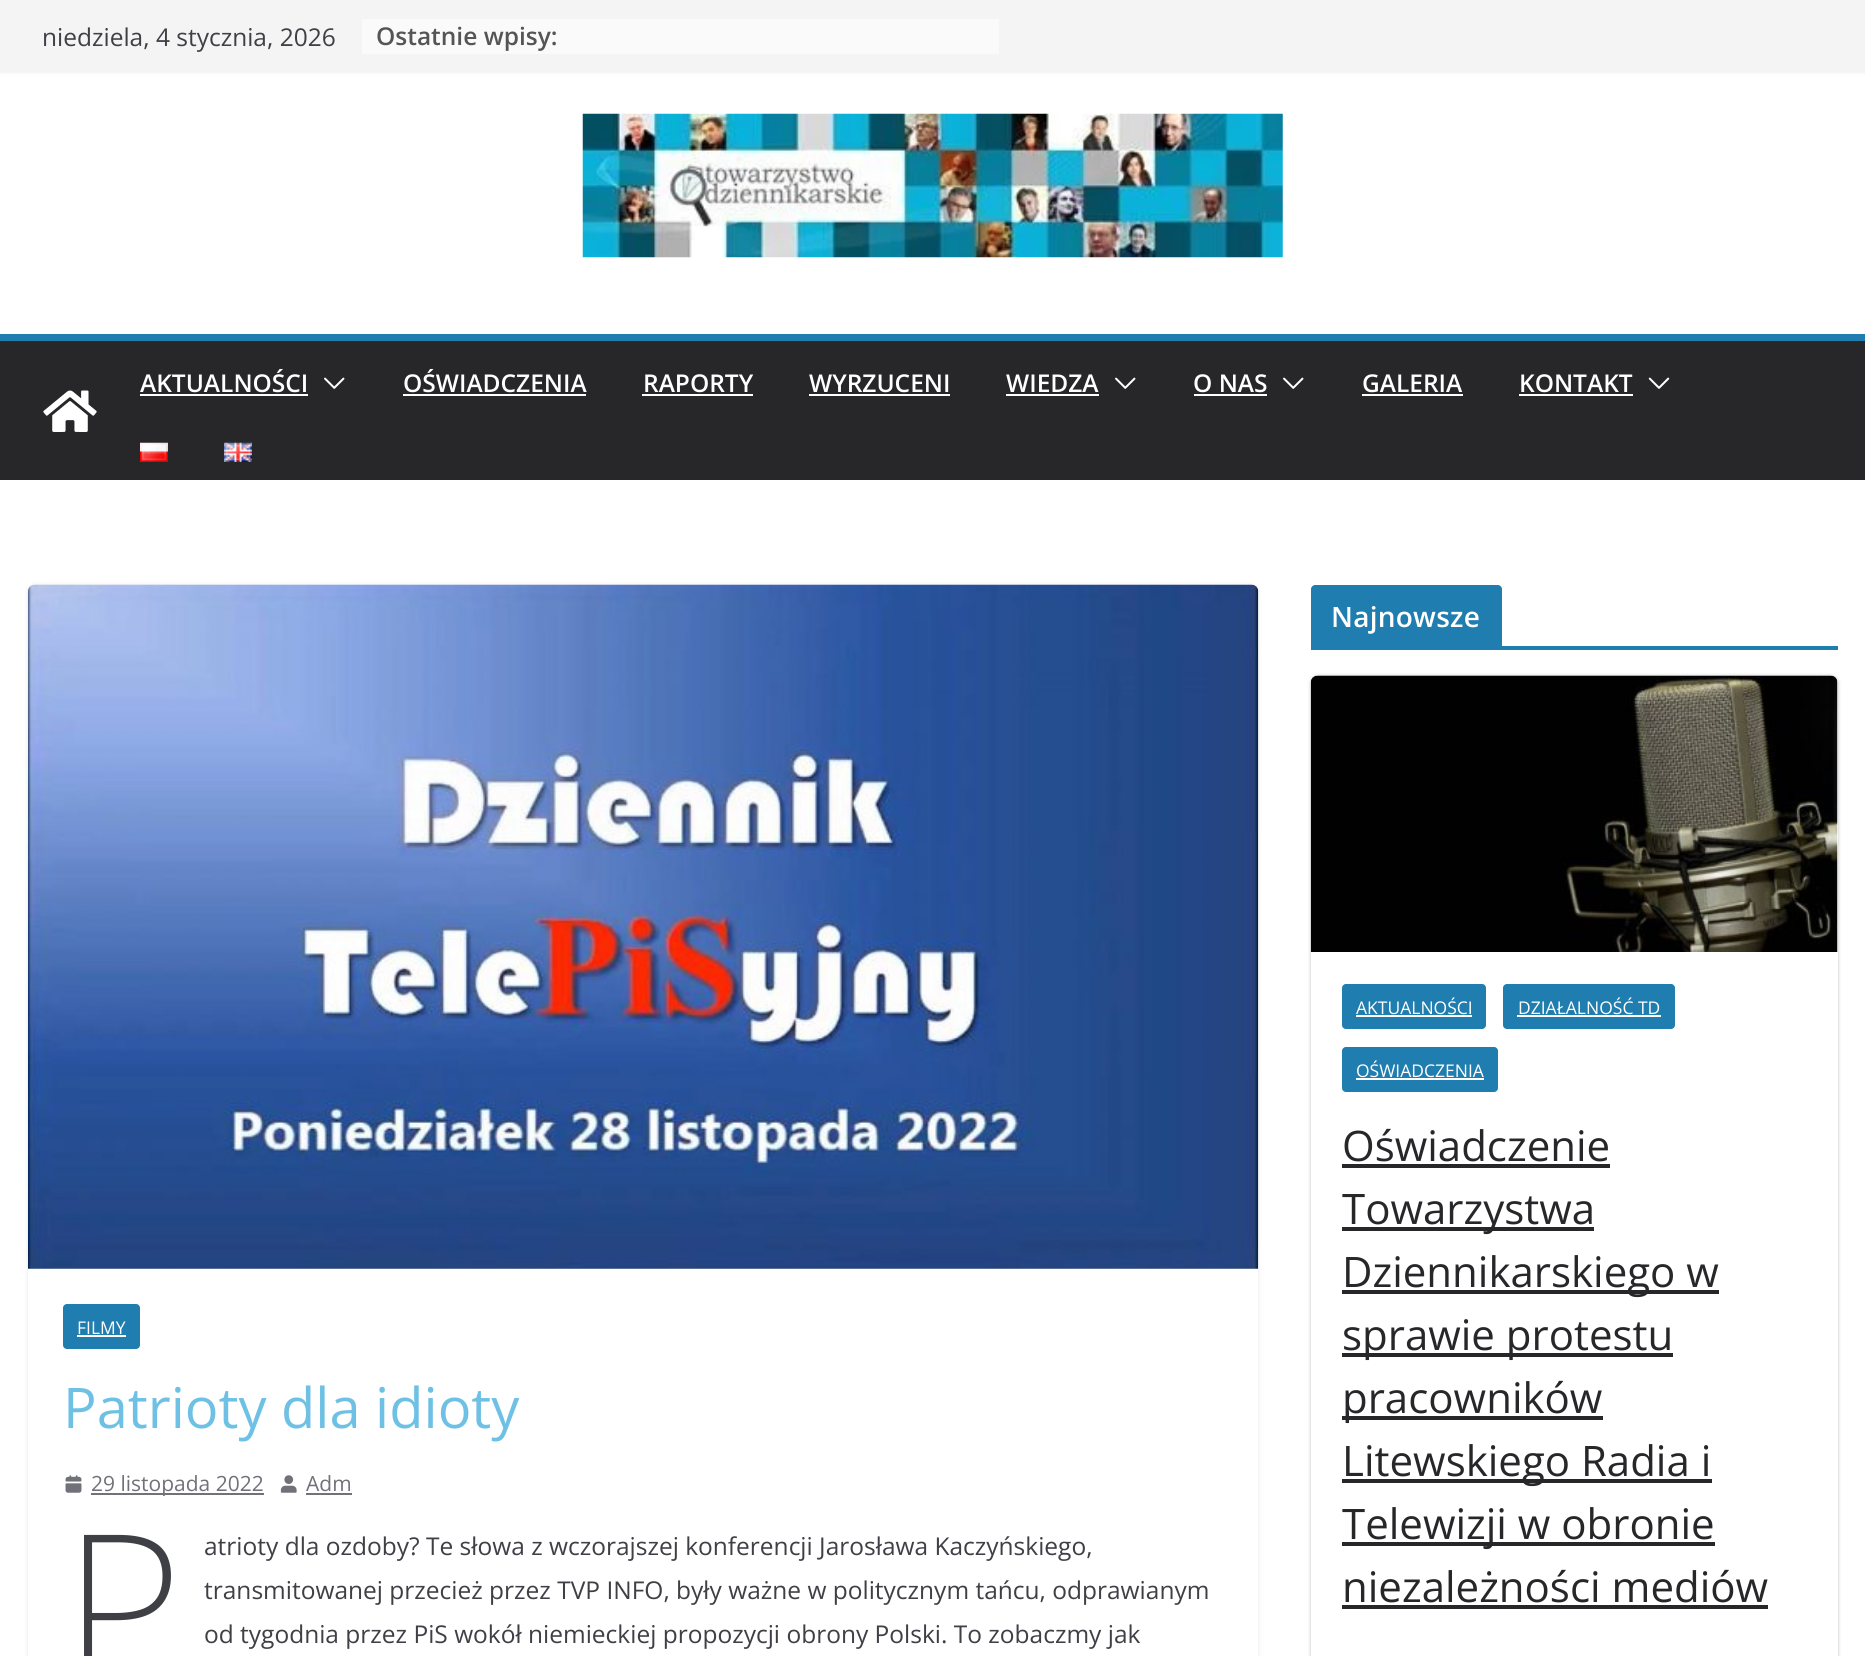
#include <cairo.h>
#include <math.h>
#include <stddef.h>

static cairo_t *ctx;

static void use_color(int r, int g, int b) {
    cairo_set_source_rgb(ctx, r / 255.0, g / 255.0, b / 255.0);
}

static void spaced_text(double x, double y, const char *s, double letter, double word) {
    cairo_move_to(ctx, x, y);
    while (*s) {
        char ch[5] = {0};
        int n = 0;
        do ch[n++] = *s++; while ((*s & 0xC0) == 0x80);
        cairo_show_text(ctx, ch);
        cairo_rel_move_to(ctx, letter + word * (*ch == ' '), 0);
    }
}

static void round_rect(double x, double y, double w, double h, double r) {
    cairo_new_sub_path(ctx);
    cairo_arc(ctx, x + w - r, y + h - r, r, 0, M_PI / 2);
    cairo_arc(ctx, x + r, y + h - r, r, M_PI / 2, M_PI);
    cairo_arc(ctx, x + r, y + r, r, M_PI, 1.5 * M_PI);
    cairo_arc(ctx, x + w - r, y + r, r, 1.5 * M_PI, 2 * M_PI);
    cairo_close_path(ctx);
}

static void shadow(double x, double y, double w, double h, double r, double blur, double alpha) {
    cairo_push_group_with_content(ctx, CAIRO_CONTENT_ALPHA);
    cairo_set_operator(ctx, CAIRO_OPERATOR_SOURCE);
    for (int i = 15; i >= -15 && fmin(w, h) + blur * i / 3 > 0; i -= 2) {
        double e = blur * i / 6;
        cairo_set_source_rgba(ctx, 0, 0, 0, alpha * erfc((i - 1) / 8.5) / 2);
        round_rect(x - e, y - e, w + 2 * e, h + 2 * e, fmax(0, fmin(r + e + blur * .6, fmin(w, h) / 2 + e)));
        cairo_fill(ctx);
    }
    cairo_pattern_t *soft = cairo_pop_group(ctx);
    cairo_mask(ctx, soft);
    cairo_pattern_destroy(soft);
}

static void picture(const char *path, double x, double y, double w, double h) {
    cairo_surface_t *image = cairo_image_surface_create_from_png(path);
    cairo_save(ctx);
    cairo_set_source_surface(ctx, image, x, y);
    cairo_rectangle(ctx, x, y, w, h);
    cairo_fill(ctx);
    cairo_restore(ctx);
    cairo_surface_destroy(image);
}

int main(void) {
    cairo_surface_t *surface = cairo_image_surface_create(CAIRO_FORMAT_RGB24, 1865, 1656);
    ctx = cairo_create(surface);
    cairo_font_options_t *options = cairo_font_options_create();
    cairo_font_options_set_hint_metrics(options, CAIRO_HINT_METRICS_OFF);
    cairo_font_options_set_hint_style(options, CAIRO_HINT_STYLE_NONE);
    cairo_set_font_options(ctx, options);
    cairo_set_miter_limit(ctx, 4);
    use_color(255, 255, 255);
    cairo_paint(ctx);
    use_color(0, 0, 0);
    shadow(0, 0, 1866, 72, 0, 2, 0.1);
    use_color(244, 244, 245);
    cairo_rectangle(ctx, 0, 0, 1865, 72);
    cairo_fill(ctx);
    cairo_select_font_face(ctx, "Open Sans", CAIRO_FONT_SLANT_NORMAL, CAIRO_FONT_WEIGHT_NORMAL);
    cairo_set_font_size(ctx, 24.5);
    use_color(63, 63, 70);
    cairo_move_to(ctx, 42, 46);
    cairo_show_text(ctx, "niedziela, 4 stycznia, 2026");
    use_color(250, 250, 250);
    cairo_rectangle(ctx, 362, 19, 637, 35);
    cairo_fill(ctx);
    cairo_select_font_face(ctx, "Open Sans SemiBold", CAIRO_FONT_SLANT_NORMAL, CAIRO_FONT_WEIGHT_NORMAL);
    use_color(85, 85, 85);
    cairo_move_to(ctx, 376, 45);
    cairo_show_text(ctx, "Ostatnie wpisy:");
    picture("img1.png", 582, 113, 701, 145);
    use_color(39, 39, 42);
    cairo_rectangle(ctx, 0, 341, 1865, 139);
    cairo_fill(ctx);
    use_color(32, 125, 175);
    cairo_rectangle(ctx, 0, 334, 1865, 7);
    cairo_fill(ctx);
    use_color(255, 255, 255);
    cairo_move_to(ctx, 140, 392);
    cairo_show_text(ctx, "AKTUALNOŚCI");
    cairo_rectangle(ctx, 140, 394, 168, 2);
    cairo_fill(ctx);
    picture("img2.png", 324, 377, 21, 12);
    cairo_move_to(ctx, 403, 392);
    cairo_show_text(ctx, "OŚWIADCZENIA");
    cairo_rectangle(ctx, 403, 394, 183, 2);
    cairo_fill(ctx);
    cairo_move_to(ctx, 643, 392);
    cairo_show_text(ctx, "RAPORTY");
    cairo_rectangle(ctx, 642, 394, 111, 2);
    cairo_fill(ctx);
    cairo_move_to(ctx, 809, 392);
    cairo_show_text(ctx, "WYRZUCENI");
    cairo_rectangle(ctx, 809, 394, 141, 2);
    cairo_fill(ctx);
    cairo_move_to(ctx, 1006, 392);
    cairo_show_text(ctx, "WIEDZA");
    cairo_rectangle(ctx, 1006, 394, 93, 2);
    cairo_fill(ctx);
    picture("img2.png", 1115, 377, 21, 12);
    cairo_move_to(ctx, 1193, 392);
    cairo_show_text(ctx, "O NAS");
    cairo_rectangle(ctx, 1194, 394, 73, 2);
    cairo_fill(ctx);
    picture("img2.png", 1283, 377, 21, 12);
    cairo_move_to(ctx, 1362, 392);
    cairo_show_text(ctx, "GALERIA");
    cairo_rectangle(ctx, 1362, 394, 101, 2);
    cairo_fill(ctx);
    cairo_move_to(ctx, 1519, 392);
    cairo_show_text(ctx, "KONTAKT");
    cairo_rectangle(ctx, 1519, 394, 114, 2);
    cairo_fill(ctx);
    picture("img3.png", 1648, 377, 22, 12);
    picture("img4.png", 140, 442, 28, 20);
    picture("img5.png", 224, 442, 28, 20);
    picture("img6.png", 43, 390, 54, 42);
    cairo_save(ctx);
    cairo_set_fill_rule(ctx, CAIRO_FILL_RULE_EVEN_ODD);
    cairo_new_path(ctx);
    cairo_move_to(ctx, 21, 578);
    cairo_line_to(ctx, 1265, 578);
    cairo_line_to(ctx, 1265, 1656);
    cairo_line_to(ctx, 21, 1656);
    cairo_close_path(ctx);
    cairo_move_to(ctx, 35, 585);
    cairo_line_to(ctx, 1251, 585);
    cairo_curve_to(ctx, 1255, 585, 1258, 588, 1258, 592);
    cairo_line_to(ctx, 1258, 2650);
    cairo_curve_to(ctx, 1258, 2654, 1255, 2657, 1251, 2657);
    cairo_line_to(ctx, 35, 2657);
    cairo_curve_to(ctx, 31, 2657, 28, 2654, 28, 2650);
    cairo_line_to(ctx, 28, 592);
    cairo_curve_to(ctx, 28, 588, 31, 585, 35, 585);
    cairo_close_path(ctx);
    cairo_clip(ctx);
    use_color(228, 228, 231);
    shadow(28, 585, 1230, 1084, 7, 2, 1);
    cairo_restore(ctx);
    picture("img7.png", 28, 584, 1231, 685);
    use_color(32, 125, 175);
    round_rect(63, 1304, 77, 45, 4);
    cairo_fill(ctx);
    cairo_select_font_face(ctx, "Open Sans", CAIRO_FONT_SLANT_NORMAL, CAIRO_FONT_WEIGHT_NORMAL);
    cairo_set_font_size(ctx, 17.5);
    use_color(255, 255, 255);
    cairo_move_to(ctx, 77, 1334);
    cairo_show_text(ctx, "FILMY");
    cairo_rectangle(ctx, 77, 1335, 49, 2);
    cairo_fill(ctx);
    cairo_set_font_size(ctx, 56);
    use_color(110, 193, 228);
    cairo_move_to(ctx, 63, 1428);
    cairo_show_text(ctx, "Patrioty dla idioty");
    picture("img8.png", 65, 1475, 17, 18);
    use_color(113, 113, 122);
    cairo_rectangle(ctx, 91, 1493, 173, 2);
    cairo_fill(ctx);
    cairo_set_font_size(ctx, 21);
    cairo_move_to(ctx, 91, 1491);
    cairo_show_text(ctx, "29 listopada 2022");
    picture("img9.png", 280, 1475, 17, 18);
    cairo_move_to(ctx, 306, 1491);
    cairo_show_text(ctx, "Adm");
    cairo_rectangle(ctx, 306, 1493, 46, 2);
    cairo_fill(ctx);
    cairo_select_font_face(ctx, "Noto Sans ExtraLight", CAIRO_FONT_SLANT_NORMAL, CAIRO_FONT_WEIGHT_NORMAL);
    cairo_set_font_size(ctx, 206);
    use_color(63, 63, 70);
    cairo_move_to(ctx, 63, 1682);
    cairo_show_text(ctx, "P");
    cairo_select_font_face(ctx, "Open Sans", CAIRO_FONT_SLANT_NORMAL, CAIRO_FONT_WEIGHT_NORMAL);
    cairo_set_font_size(ctx, 24.5);
    cairo_move_to(ctx, 204, 1555);
    cairo_show_text(ctx, "atrioty dla ozdoby? Te słowa z wczorajszej konferencji Jarosława Kaczyńskiego,");
    cairo_move_to(ctx, 204, 1599);
    cairo_show_text(ctx, "transmitowanej przecież przez TVP INFO, były ważne w politycznym tańcu, odprawianym");
    cairo_move_to(ctx, 204, 1643);
    cairo_show_text(ctx, "od tygodnia przez PiS wokół niemieckiej propozycji obrony Polski. To zobaczmy jak");
    use_color(32, 125, 175);
    cairo_rectangle(ctx, 1311, 646, 527, 4);
    cairo_fill(ctx);
    cairo_new_path(ctx);
    cairo_move_to(ctx, 1315, 585);
    cairo_line_to(ctx, 1498, 585);
    cairo_curve_to(ctx, 1500, 585, 1502, 587, 1502, 589);
    cairo_line_to(ctx, 1502, 646);
    cairo_line_to(ctx, 1311, 646);
    cairo_line_to(ctx, 1311, 589);
    cairo_curve_to(ctx, 1311, 587, 1313, 585, 1315, 585);
    cairo_close_path(ctx);
    cairo_fill(ctx);
    cairo_select_font_face(ctx, "Open Sans SemiBold", CAIRO_FONT_SLANT_NORMAL, CAIRO_FONT_WEIGHT_NORMAL);
    cairo_set_font_size(ctx, 28);
    use_color(255, 255, 255);
    spaced_text(1331, 627, "Najnowsze", 0.25, 0);
    cairo_save(ctx);
    cairo_set_fill_rule(ctx, CAIRO_FILL_RULE_EVEN_ODD);
    cairo_new_path(ctx);
    cairo_move_to(ctx, 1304, 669);
    cairo_line_to(ctx, 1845, 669);
    cairo_line_to(ctx, 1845, 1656);
    cairo_line_to(ctx, 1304, 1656);
    cairo_close_path(ctx);
    cairo_move_to(ctx, 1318, 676);
    cairo_line_to(ctx, 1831, 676);
    cairo_curve_to(ctx, 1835, 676, 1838, 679, 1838, 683);
    cairo_line_to(ctx, 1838, 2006);
    cairo_curve_to(ctx, 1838, 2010, 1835, 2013, 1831, 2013);
    cairo_line_to(ctx, 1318, 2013);
    cairo_curve_to(ctx, 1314, 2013, 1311, 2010, 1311, 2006);
    cairo_line_to(ctx, 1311, 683);
    cairo_curve_to(ctx, 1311, 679, 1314, 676, 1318, 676);
    cairo_close_path(ctx);
    cairo_clip(ctx);
    use_color(0, 0, 0);
    shadow(1311, 676, 527, 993, 7, 2, 0.24);
    cairo_restore(ctx);
    picture("img10.png", 1310, 675, 528, 277);
    use_color(32, 125, 175);
    round_rect(1342, 984, 144, 45, 4);
    cairo_fill(ctx);
    cairo_select_font_face(ctx, "Open Sans", CAIRO_FONT_SLANT_NORMAL, CAIRO_FONT_WEIGHT_NORMAL);
    cairo_set_font_size(ctx, 17.5);
    use_color(255, 255, 255);
    cairo_move_to(ctx, 1356, 1014);
    cairo_show_text(ctx, "AKTUALNOŚCI");
    cairo_rectangle(ctx, 1356, 1015, 116, 2);
    cairo_fill(ctx);
    use_color(32, 125, 175);
    round_rect(1503, 984, 172, 45, 4);
    cairo_fill(ctx);
    use_color(255, 255, 255);
    cairo_move_to(ctx, 1518, 1014);
    cairo_show_text(ctx, "DZIAŁALNOŚĆ TD");
    cairo_rectangle(ctx, 1517, 1015, 144, 2);
    cairo_fill(ctx);
    use_color(32, 125, 175);
    round_rect(1342, 1047, 156, 45, 4);
    cairo_fill(ctx);
    use_color(255, 255, 255);
    cairo_move_to(ctx, 1356, 1077);
    cairo_show_text(ctx, "OŚWIADCZENIA");
    cairo_rectangle(ctx, 1356, 1078, 128, 2);
    cairo_fill(ctx);
    cairo_set_font_size(ctx, 42);
    use_color(39, 39, 42);
    cairo_move_to(ctx, 1342, 1161);
    cairo_show_text(ctx, "Oświadczenie");
    cairo_rectangle(ctx, 1342, 1164, 268, 4);
    cairo_fill(ctx);
    cairo_rectangle(ctx, 1342, 1227, 252, 4);
    cairo_fill(ctx);
    cairo_move_to(ctx, 1342, 1224);
    cairo_show_text(ctx, "Towarzystwa");
    cairo_rectangle(ctx, 1342, 1290, 377, 4);
    cairo_fill(ctx);
    cairo_move_to(ctx, 1342, 1287);
    cairo_show_text(ctx, "Dziennikarskiego w");
    cairo_rectangle(ctx, 1342, 1353, 331, 4);
    cairo_fill(ctx);
    cairo_move_to(ctx, 1342, 1350);
    cairo_show_text(ctx, "sprawie protestu");
    cairo_rectangle(ctx, 1342, 1416, 261, 4);
    cairo_fill(ctx);
    cairo_move_to(ctx, 1342, 1413);
    cairo_show_text(ctx, "pracowników");
    cairo_rectangle(ctx, 1342, 1479, 370, 4);
    cairo_fill(ctx);
    cairo_move_to(ctx, 1342, 1476);
    cairo_show_text(ctx, "Litewskiego Radia i");
    cairo_rectangle(ctx, 1342, 1542, 373, 4);
    cairo_fill(ctx);
    cairo_move_to(ctx, 1342, 1539);
    cairo_show_text(ctx, "Telewizji w obronie");
    cairo_move_to(ctx, 1342, 1602);
    cairo_show_text(ctx, "niezależności mediów");
    cairo_rectangle(ctx, 1342, 1605, 426, 4);
    cairo_fill(ctx);
    cairo_surface_write_to_png(surface, "result.png");
    cairo_font_options_destroy(options);
    cairo_destroy(ctx);
    cairo_surface_destroy(surface);
    return 0;
}
